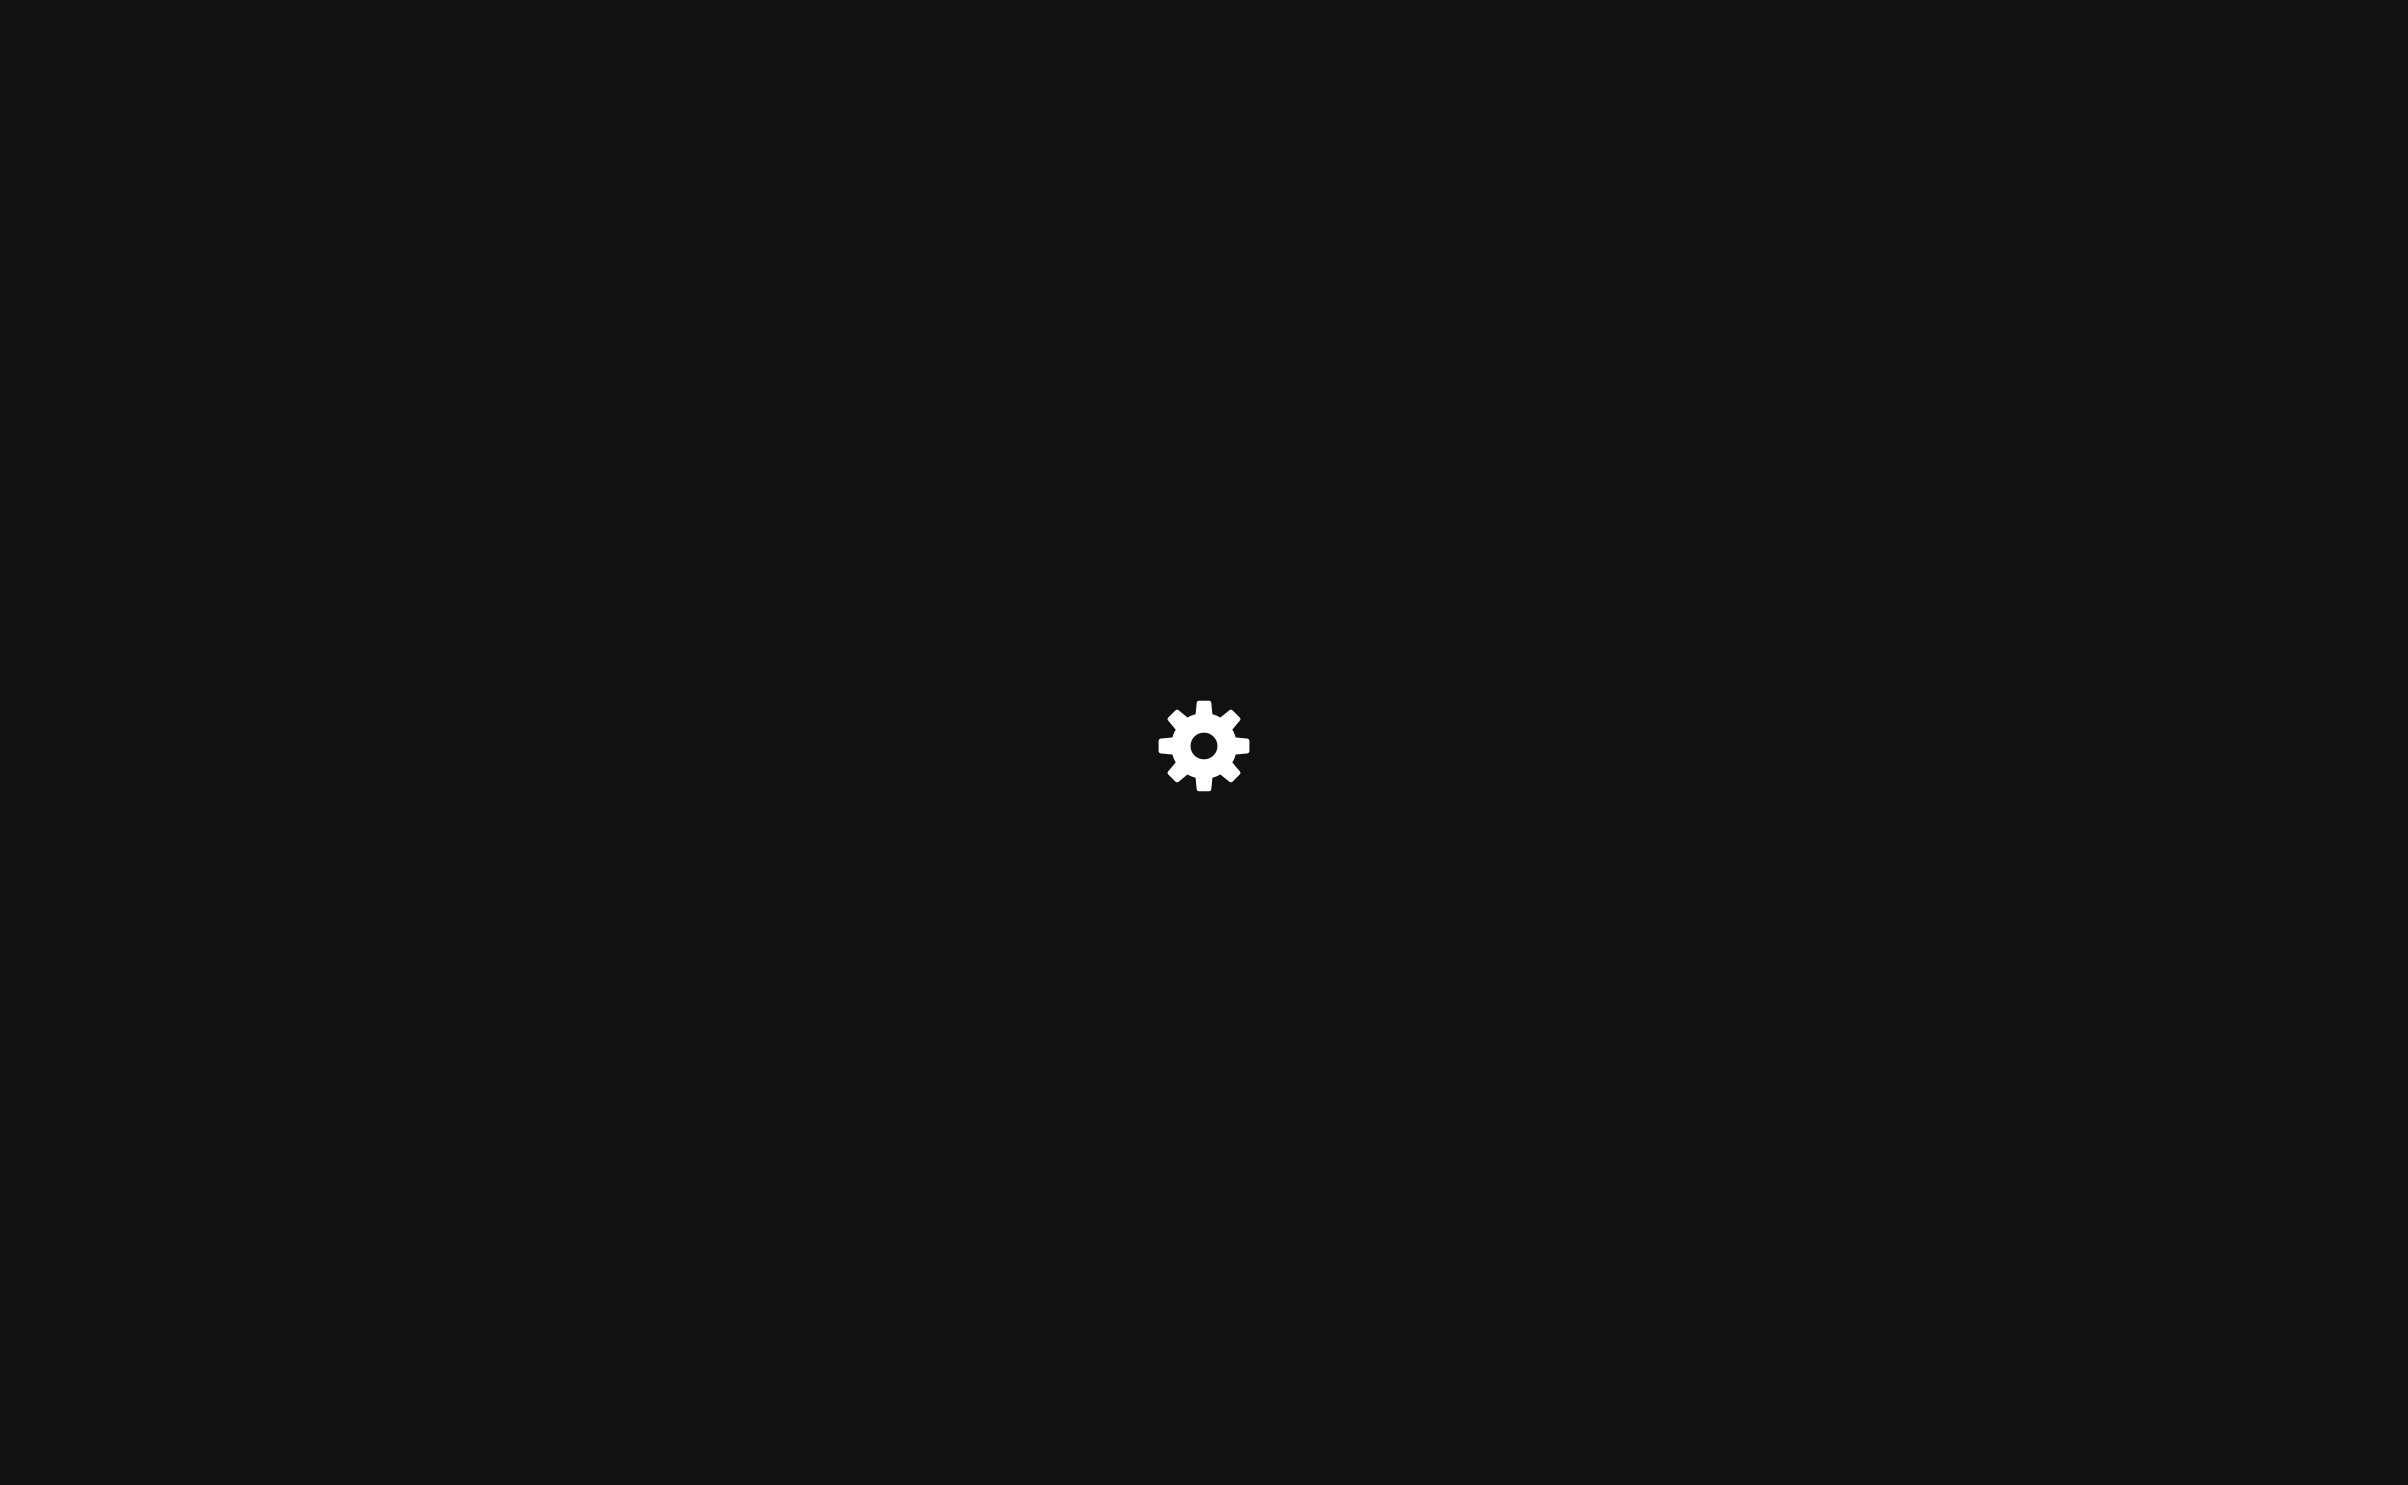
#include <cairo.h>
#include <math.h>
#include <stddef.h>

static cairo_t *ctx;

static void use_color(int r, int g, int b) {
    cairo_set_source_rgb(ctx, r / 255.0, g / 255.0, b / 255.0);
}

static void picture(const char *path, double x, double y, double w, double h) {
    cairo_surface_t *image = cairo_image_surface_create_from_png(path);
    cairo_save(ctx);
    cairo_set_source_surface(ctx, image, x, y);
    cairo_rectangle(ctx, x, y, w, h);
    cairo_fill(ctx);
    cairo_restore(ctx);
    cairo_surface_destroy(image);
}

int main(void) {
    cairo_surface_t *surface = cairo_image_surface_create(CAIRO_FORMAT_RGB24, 2408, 1485);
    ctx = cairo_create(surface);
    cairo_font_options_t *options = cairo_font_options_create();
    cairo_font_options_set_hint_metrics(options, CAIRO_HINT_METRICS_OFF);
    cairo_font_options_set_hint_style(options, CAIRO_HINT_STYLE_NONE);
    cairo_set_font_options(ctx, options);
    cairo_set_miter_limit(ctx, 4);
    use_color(17, 17, 17);
    cairo_paint(ctx);
    picture("img1.png", 1158, 700, 92, 92);
    cairo_surface_write_to_png(surface, "result.png");
    cairo_font_options_destroy(options);
    cairo_destroy(ctx);
    cairo_surface_destroy(surface);
    return 0;
}
